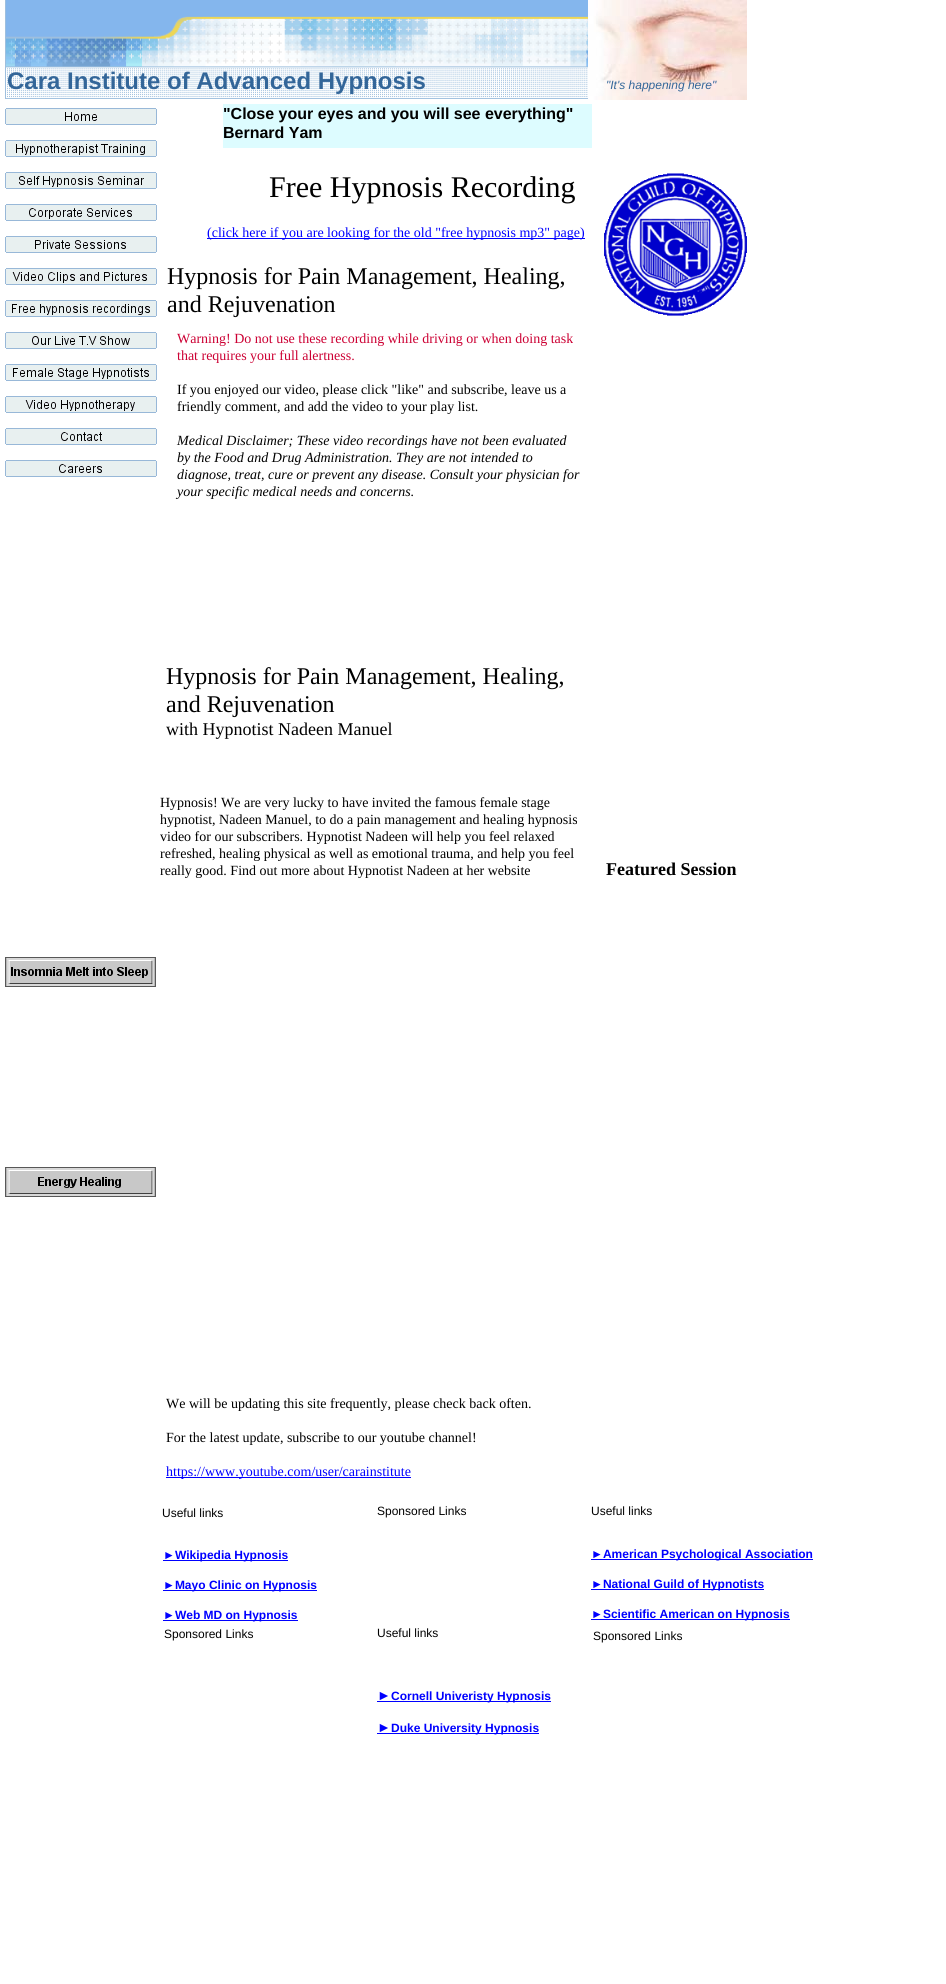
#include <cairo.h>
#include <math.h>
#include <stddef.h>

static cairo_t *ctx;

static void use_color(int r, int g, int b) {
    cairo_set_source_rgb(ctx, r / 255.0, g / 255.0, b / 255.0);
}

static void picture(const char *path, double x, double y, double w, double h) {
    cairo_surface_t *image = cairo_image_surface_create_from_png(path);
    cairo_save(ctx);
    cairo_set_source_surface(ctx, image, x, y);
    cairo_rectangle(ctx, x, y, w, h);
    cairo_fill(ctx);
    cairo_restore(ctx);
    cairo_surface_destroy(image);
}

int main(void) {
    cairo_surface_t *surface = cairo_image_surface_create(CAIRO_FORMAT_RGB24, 946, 1984);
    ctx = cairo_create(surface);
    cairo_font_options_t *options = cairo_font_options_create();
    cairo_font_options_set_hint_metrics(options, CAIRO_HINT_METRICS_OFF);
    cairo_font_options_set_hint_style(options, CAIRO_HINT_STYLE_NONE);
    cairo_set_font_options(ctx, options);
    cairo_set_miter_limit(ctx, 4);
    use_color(255, 255, 255);
    cairo_paint(ctx);
    picture("img1.png", 5, 0, 583, 99);
    picture("img2.png", 588, 0, 159, 100);
    cairo_select_font_face(ctx, "Liberation Sans", CAIRO_FONT_SLANT_NORMAL, CAIRO_FONT_WEIGHT_BOLD);
    cairo_set_font_size(ctx, 24);
    use_color(51, 102, 153);
    cairo_move_to(ctx, 7, 89);
    cairo_show_text(ctx, "Cara Institute of Advanced Hypnosis");
    cairo_select_font_face(ctx, "Liberation Sans", CAIRO_FONT_SLANT_ITALIC, CAIRO_FONT_WEIGHT_NORMAL);
    cairo_set_font_size(ctx, 12);
    cairo_move_to(ctx, 606, 89);
    cairo_show_text(ctx, "\"It's happening here\"");
    picture("img3.png", 5, 108, 152, 17);
    picture("img4.png", 5, 140, 152, 17);
    picture("img5.png", 5, 172, 152, 17);
    picture("img6.png", 5, 204, 152, 17);
    picture("img7.png", 5, 236, 152, 17);
    picture("img8.png", 5, 268, 152, 17);
    picture("img9.png", 5, 300, 152, 17);
    picture("img10.png", 5, 332, 152, 17);
    picture("img11.png", 5, 364, 152, 17);
    picture("img12.png", 5, 396, 152, 17);
    picture("img13.png", 5, 428, 152, 17);
    picture("img14.png", 5, 460, 152, 17);
    use_color(221, 252, 255);
    cairo_rectangle(ctx, 223, 104, 369, 44);
    cairo_fill(ctx);
    cairo_select_font_face(ctx, "Liberation Sans", CAIRO_FONT_SLANT_NORMAL, CAIRO_FONT_WEIGHT_BOLD);
    cairo_set_font_size(ctx, 16);
    use_color(0, 0, 0);
    cairo_move_to(ctx, 223, 119);
    cairo_show_text(ctx, "\"Close your eyes and you will see everything\"");
    cairo_move_to(ctx, 223, 138);
    cairo_show_text(ctx, "Bernard Yam");
    picture("img15.png", 604, 173, 143, 143);
    cairo_select_font_face(ctx, "Liberation Serif", CAIRO_FONT_SLANT_NORMAL, CAIRO_FONT_WEIGHT_NORMAL);
    cairo_set_font_size(ctx, 30);
    cairo_move_to(ctx, 269, 197);
    cairo_show_text(ctx, "Free Hypnosis Recording");
    use_color(0, 0, 255);
    cairo_rectangle(ctx, 207, 238, 378, 1);
    cairo_fill(ctx);
    cairo_set_font_size(ctx, 14);
    cairo_move_to(ctx, 207, 237);
    cairo_show_text(ctx, "(click here if you are looking for the old \"free hypnosis mp3\" page)");
    cairo_set_font_size(ctx, 24);
    use_color(0, 0, 0);
    cairo_move_to(ctx, 167, 284);
    cairo_show_text(ctx, "Hypnosis for Pain Management, Healing,");
    cairo_move_to(ctx, 167, 312);
    cairo_show_text(ctx, "and Rejuvenation");
    cairo_set_font_size(ctx, 14);
    use_color(204, 0, 51);
    cairo_move_to(ctx, 177, 343);
    cairo_show_text(ctx, "Warning! Do not use these recording while driving or when doing task");
    cairo_move_to(ctx, 177, 360);
    cairo_show_text(ctx, "that requires your full alertness.");
    use_color(0, 0, 0);
    cairo_move_to(ctx, 177, 394);
    cairo_show_text(ctx, "If you enjoyed our video, please click \"like\" and subscribe, leave us a");
    cairo_move_to(ctx, 177, 411);
    cairo_show_text(ctx, "friendly comment, and add the video to your play list.");
    cairo_select_font_face(ctx, "Liberation Serif", CAIRO_FONT_SLANT_ITALIC, CAIRO_FONT_WEIGHT_NORMAL);
    cairo_move_to(ctx, 177, 445);
    cairo_show_text(ctx, "Medical Disclaimer; These video recordings have not been evaluated");
    cairo_move_to(ctx, 177, 462);
    cairo_show_text(ctx, "by the Food and Drug Administration. They are not intended to");
    cairo_move_to(ctx, 177, 479);
    cairo_show_text(ctx, "diagnose, treat, cure or prevent any disease. Consult your physician for");
    cairo_move_to(ctx, 177, 496);
    cairo_show_text(ctx, "your specific medical needs and concerns.");
    cairo_select_font_face(ctx, "Liberation Serif", CAIRO_FONT_SLANT_NORMAL, CAIRO_FONT_WEIGHT_NORMAL);
    cairo_set_font_size(ctx, 24);
    cairo_move_to(ctx, 166, 684);
    cairo_show_text(ctx, "Hypnosis for Pain Management, Healing,");
    cairo_move_to(ctx, 166, 712);
    cairo_show_text(ctx, "and Rejuvenation");
    cairo_set_font_size(ctx, 18);
    cairo_move_to(ctx, 166, 735);
    cairo_show_text(ctx, "with Hypnotist Nadeen Manuel");
    cairo_set_font_size(ctx, 14);
    cairo_move_to(ctx, 160, 807);
    cairo_show_text(ctx, "Hypnosis! We are very lucky to have invited the famous female stage");
    cairo_move_to(ctx, 160, 824);
    cairo_show_text(ctx, "hypnotist, Nadeen Manuel, to do a pain management and healing hypnosis");
    cairo_move_to(ctx, 160, 841);
    cairo_show_text(ctx, "video for our subscribers. Hypnotist Nadeen will help you feel relaxed");
    cairo_move_to(ctx, 160, 858);
    cairo_show_text(ctx, "refreshed, healing physical as well as emotional trauma, and help you feel");
    cairo_move_to(ctx, 160, 875);
    cairo_show_text(ctx, "really good. Find out more about Hypnotist Nadeen at her website");
    cairo_select_font_face(ctx, "Liberation Serif", CAIRO_FONT_SLANT_NORMAL, CAIRO_FONT_WEIGHT_BOLD);
    cairo_set_font_size(ctx, 18);
    cairo_move_to(ctx, 606, 875);
    cairo_show_text(ctx, "Featured Session");
    picture("img16.png", 5, 957, 151, 30);
    picture("img17.png", 5, 1167, 151, 30);
    cairo_select_font_face(ctx, "Liberation Serif", CAIRO_FONT_SLANT_NORMAL, CAIRO_FONT_WEIGHT_NORMAL);
    cairo_set_font_size(ctx, 14);
    cairo_move_to(ctx, 166, 1408);
    cairo_show_text(ctx, "We will be updating this site frequently, please check back often.");
    cairo_move_to(ctx, 166, 1442);
    cairo_show_text(ctx, "For the latest update, subscribe to our youtube channel!");
    use_color(0, 0, 255);
    cairo_rectangle(ctx, 166, 1477, 245, 1);
    cairo_fill(ctx);
    cairo_move_to(ctx, 166, 1476);
    cairo_show_text(ctx, "https://www.youtube.com/user/carainstitute");
    cairo_select_font_face(ctx, "Liberation Sans", CAIRO_FONT_SLANT_NORMAL, CAIRO_FONT_WEIGHT_NORMAL);
    cairo_set_font_size(ctx, 12);
    use_color(0, 0, 0);
    cairo_move_to(ctx, 162, 1517);
    cairo_show_text(ctx, "Useful links");
    cairo_move_to(ctx, 377, 1515);
    cairo_show_text(ctx, "Sponsored Links");
    cairo_move_to(ctx, 591, 1515);
    cairo_show_text(ctx, "Useful links");
    use_color(0, 0, 255);
    cairo_rectangle(ctx, 163, 1560, 125, 1);
    cairo_fill(ctx);
    cairo_select_font_face(ctx, "Liberation Sans", CAIRO_FONT_SLANT_NORMAL, CAIRO_FONT_WEIGHT_BOLD);
    cairo_move_to(ctx, 163, 1559);
    cairo_show_text(ctx, "►Wikipedia Hypnosis");
    cairo_rectangle(ctx, 163, 1590, 154, 1);
    cairo_fill(ctx);
    cairo_move_to(ctx, 163, 1589);
    cairo_show_text(ctx, "►Mayo Clinic on Hypnosis");
    cairo_rectangle(ctx, 163, 1620, 135, 1);
    cairo_fill(ctx);
    cairo_move_to(ctx, 163, 1619);
    cairo_show_text(ctx, "►Web MD on Hypnosis");
    cairo_rectangle(ctx, 591, 1559, 222, 1);
    cairo_fill(ctx);
    cairo_move_to(ctx, 591, 1558);
    cairo_show_text(ctx, "►American Psychological Association");
    cairo_rectangle(ctx, 591, 1589, 173, 1);
    cairo_fill(ctx);
    cairo_move_to(ctx, 591, 1588);
    cairo_show_text(ctx, "►National Guild of Hypnotists");
    cairo_rectangle(ctx, 591, 1619, 199, 1);
    cairo_fill(ctx);
    cairo_move_to(ctx, 591, 1618);
    cairo_show_text(ctx, "►Scientific American on Hypnosis");
    cairo_select_font_face(ctx, "Liberation Sans", CAIRO_FONT_SLANT_NORMAL, CAIRO_FONT_WEIGHT_NORMAL);
    use_color(0, 0, 0);
    cairo_move_to(ctx, 164, 1638);
    cairo_show_text(ctx, "Sponsored Links");
    cairo_move_to(ctx, 377, 1637);
    cairo_show_text(ctx, "Useful links");
    cairo_move_to(ctx, 593, 1640);
    cairo_show_text(ctx, "Sponsored Links");
    cairo_select_font_face(ctx, "Liberation Sans", CAIRO_FONT_SLANT_NORMAL, CAIRO_FONT_WEIGHT_BOLD);
    cairo_set_font_size(ctx, 14);
    use_color(0, 0, 255);
    cairo_move_to(ctx, 377, 1700);
    cairo_show_text(ctx, "►");
    cairo_rectangle(ctx, 377, 1701, 174, 1);
    cairo_fill(ctx);
    cairo_set_font_size(ctx, 12);
    cairo_move_to(ctx, 391, 1700);
    cairo_show_text(ctx, "Cornell Univeristy Hypnosis");
    cairo_set_font_size(ctx, 14);
    cairo_move_to(ctx, 377, 1732);
    cairo_show_text(ctx, "►");
    cairo_rectangle(ctx, 377, 1733, 162, 1);
    cairo_fill(ctx);
    cairo_set_font_size(ctx, 12);
    cairo_move_to(ctx, 391, 1732);
    cairo_show_text(ctx, "Duke University Hypnosis");
    cairo_surface_write_to_png(surface, "result.png");
    cairo_font_options_destroy(options);
    cairo_destroy(ctx);
    cairo_surface_destroy(surface);
    return 0;
}
